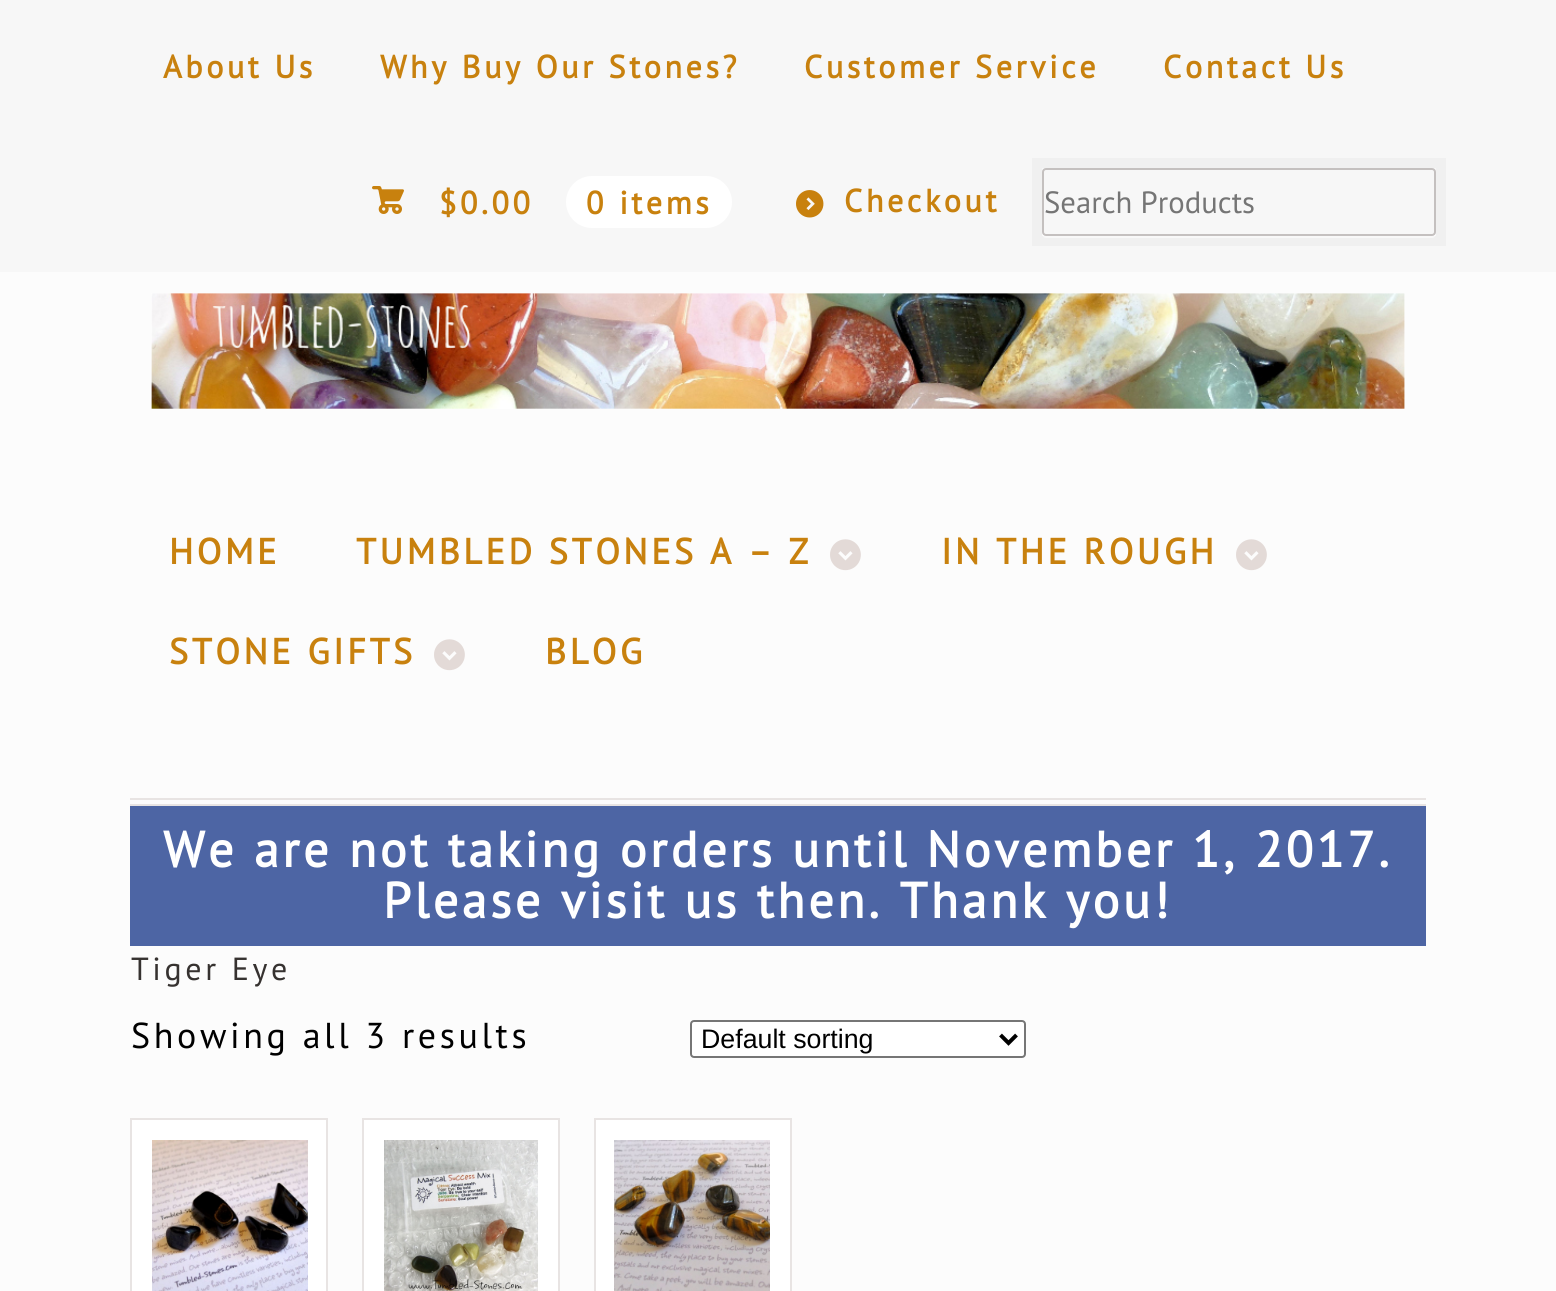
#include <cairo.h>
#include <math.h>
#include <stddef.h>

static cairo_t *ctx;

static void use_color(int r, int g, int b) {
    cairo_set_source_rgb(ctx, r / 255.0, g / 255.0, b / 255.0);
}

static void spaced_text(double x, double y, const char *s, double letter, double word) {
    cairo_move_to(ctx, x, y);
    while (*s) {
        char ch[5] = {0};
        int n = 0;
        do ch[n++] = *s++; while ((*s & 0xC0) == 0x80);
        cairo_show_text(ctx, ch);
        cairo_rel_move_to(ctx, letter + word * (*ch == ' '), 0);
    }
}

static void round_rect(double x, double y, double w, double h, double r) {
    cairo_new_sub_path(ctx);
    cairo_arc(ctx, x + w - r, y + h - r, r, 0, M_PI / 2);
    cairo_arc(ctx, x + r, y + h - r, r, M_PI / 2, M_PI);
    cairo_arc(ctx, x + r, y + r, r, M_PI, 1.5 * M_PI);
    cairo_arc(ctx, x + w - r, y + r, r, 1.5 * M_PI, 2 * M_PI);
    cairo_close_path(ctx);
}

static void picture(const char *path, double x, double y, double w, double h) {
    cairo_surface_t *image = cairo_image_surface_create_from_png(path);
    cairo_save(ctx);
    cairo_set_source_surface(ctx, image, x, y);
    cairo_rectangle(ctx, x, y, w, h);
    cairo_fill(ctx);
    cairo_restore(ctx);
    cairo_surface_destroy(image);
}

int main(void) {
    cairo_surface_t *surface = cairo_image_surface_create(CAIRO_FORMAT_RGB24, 1556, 1291);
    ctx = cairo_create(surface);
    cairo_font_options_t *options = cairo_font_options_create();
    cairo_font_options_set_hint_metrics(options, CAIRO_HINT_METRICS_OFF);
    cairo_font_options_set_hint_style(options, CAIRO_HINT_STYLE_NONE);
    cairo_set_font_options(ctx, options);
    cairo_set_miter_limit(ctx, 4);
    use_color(252, 252, 252);
    cairo_paint(ctx);
    use_color(247, 247, 247);
    cairo_rectangle(ctx, 0, 0, 1556, 272);
    cairo_fill(ctx);
    cairo_select_font_face(ctx, "PT Sans", CAIRO_FONT_SLANT_NORMAL, CAIRO_FONT_WEIGHT_BOLD);
    cairo_set_font_size(ctx, 32);
    use_color(200, 129, 14);
    spaced_text(163, 78, "About Us", 3.6, 0);
    spaced_text(380, 78, "Why Buy Our Stones?", 3.6, 0);
    spaced_text(804, 78, "Customer Service", 3.6, 0);
    spaced_text(1163, 78, "Contact Us", 3.6, 0);
    cairo_select_font_face(ctx, "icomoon", CAIRO_FONT_SLANT_NORMAL, CAIRO_FONT_WEIGHT_NORMAL);
    spaced_text(372, 214, "£", 3.6, 0);
    cairo_select_font_face(ctx, "PT Sans", CAIRO_FONT_SLANT_NORMAL, CAIRO_FONT_WEIGHT_BOLD);
    spaced_text(439, 214, "$0.00", 3.6, 0);
    use_color(255, 255, 255);
    round_rect(566, 176, 166, 52, 26);
    cairo_fill(ctx);
    use_color(200, 129, 14);
    spaced_text(586, 214, "0 items", 3.6, 0);
    picture("img1.png", 796, 190, 28, 28);
    spaced_text(844, 212, "Checkout", 3.6, 0);
    use_color(255, 255, 255);
    cairo_new_path(ctx);
    cairo_move_to(ctx, 1042, 232);
    cairo_curve_to(ctx, 1042, 235, 1043, 238, 1046, 238);
    cairo_line_to(ctx, 1432, 238);
    cairo_curve_to(ctx, 1435, 238, 1436, 235, 1436, 232);
    cairo_curve_to(ctx, 1436, 234, 1434, 236, 1432, 236);
    cairo_line_to(ctx, 1046, 236);
    cairo_curve_to(ctx, 1044, 236, 1042, 234, 1042, 232);
    cairo_close_path(ctx);
    cairo_fill(ctx);
    cairo_rectangle(ctx, 1037, 163, 404, 78);
    cairo_set_source_rgba(ctx, 0, 0, 0, 0.03);
    cairo_set_line_width(ctx, 10);
    cairo_stroke(ctx);
    round_rect(1043, 169, 392, 66, 3);
    use_color(196, 192, 191);
    cairo_set_line_width(ctx, 2);
    cairo_stroke(ctx);
    cairo_select_font_face(ctx, "PT Sans", CAIRO_FONT_SLANT_NORMAL, CAIRO_FONT_WEIGHT_NORMAL);
    cairo_set_font_size(ctx, 30.75);
    use_color(117, 117, 117);
    cairo_move_to(ctx, 1044, 213);
    cairo_show_text(ctx, "Search Products");
    use_color(232, 228, 227);
    cairo_rectangle(ctx, 130, 798, 1296, 2);
    cairo_fill(ctx);
    cairo_rectangle(ctx, 130, 804, 1296, 2);
    cairo_fill(ctx);
    picture("img2.png", 151, 293, 1254, 116);
    cairo_select_font_face(ctx, "PT Sans", CAIRO_FONT_SLANT_NORMAL, CAIRO_FONT_WEIGHT_BOLD);
    cairo_set_font_size(ctx, 36);
    use_color(200, 129, 14);
    spaced_text(169, 564, "HOME", 3.6, 0);
    spaced_text(356, 564, "TUMBLED STONES A – Z", 3.6, 0);
    picture("img3.png", 830, 539, 31, 32);
    spaced_text(941, 564, "IN THE ROUGH", 3.6, 0);
    picture("img3.png", 1236, 539, 31, 32);
    spaced_text(169, 664, "STONE GIFTS", 3.6, 0);
    picture("img3.png", 434, 639, 31, 32);
    spaced_text(545, 664, "BLOG", 3.6, 0);
    use_color(77, 101, 164);
    cairo_rectangle(ctx, 130, 806, 1296, 140);
    cairo_fill(ctx);
    cairo_set_font_size(ctx, 50);
    use_color(255, 255, 255);
    spaced_text(163, 867, "We are not taking orders until November 1, 2017.", 3.6, 0);
    spaced_text(383, 918, "Please visit us then. Thank you!", 3.6, 0);
    cairo_select_font_face(ctx, "PT Sans", CAIRO_FONT_SLANT_NORMAL, CAIRO_FONT_WEIGHT_NORMAL);
    cairo_set_font_size(ctx, 32);
    use_color(54, 50, 48);
    spaced_text(131, 980, "Tiger Eye", 3.6, 0);
    cairo_set_font_size(ctx, 36);
    use_color(0, 0, 0);
    spaced_text(131, 1048, "Showing all 3 results", 3.6, 0);
    use_color(255, 255, 255);
    round_rect(691, 1021, 334, 36, 3);
    cairo_fill_preserve(ctx);
    use_color(118, 118, 118);
    cairo_stroke(ctx);
    cairo_new_path(ctx);
    cairo_move_to(ctx, 1000.5, 1035);
    cairo_line_to(ctx, 1008.5, 1043);
    cairo_line_to(ctx, 1016.5, 1035);
    use_color(0, 0, 0);
    cairo_set_line_width(ctx, 4);
    cairo_stroke(ctx);
    cairo_select_font_face(ctx, "Liberation Sans", CAIRO_FONT_SLANT_NORMAL, CAIRO_FONT_WEIGHT_NORMAL);
    cairo_set_font_size(ctx, 26.75);
    cairo_move_to(ctx, 701, 1048);
    cairo_show_text(ctx, "Default sorting");
    use_color(255, 255, 255);
    cairo_rectangle(ctx, 131, 1119, 196, 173);
    cairo_fill_preserve(ctx);
    use_color(232, 228, 227);
    cairo_set_line_width(ctx, 2);
    cairo_stroke(ctx);
    picture("img4.png", 152, 1140, 156, 151);
    use_color(255, 255, 255);
    cairo_rectangle(ctx, 363, 1119, 196, 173);
    cairo_fill_preserve(ctx);
    use_color(232, 228, 227);
    cairo_stroke(ctx);
    picture("img5.png", 384, 1140, 154, 151);
    use_color(255, 255, 255);
    cairo_rectangle(ctx, 595, 1119, 196, 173);
    cairo_fill_preserve(ctx);
    use_color(232, 228, 227);
    cairo_stroke(ctx);
    picture("img6.png", 614, 1140, 156, 151);
    cairo_surface_write_to_png(surface, "result.png");
    cairo_font_options_destroy(options);
    cairo_destroy(ctx);
    cairo_surface_destroy(surface);
    return 0;
}
